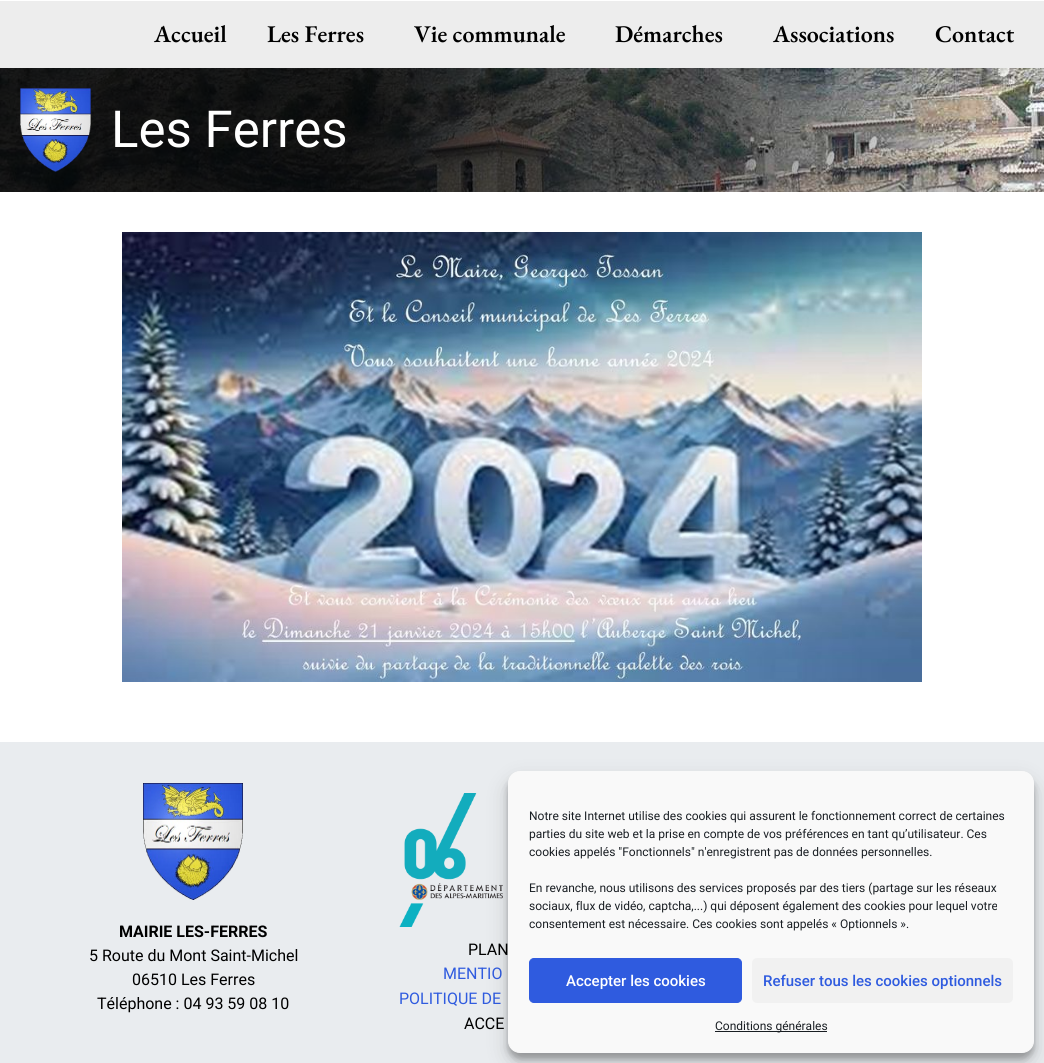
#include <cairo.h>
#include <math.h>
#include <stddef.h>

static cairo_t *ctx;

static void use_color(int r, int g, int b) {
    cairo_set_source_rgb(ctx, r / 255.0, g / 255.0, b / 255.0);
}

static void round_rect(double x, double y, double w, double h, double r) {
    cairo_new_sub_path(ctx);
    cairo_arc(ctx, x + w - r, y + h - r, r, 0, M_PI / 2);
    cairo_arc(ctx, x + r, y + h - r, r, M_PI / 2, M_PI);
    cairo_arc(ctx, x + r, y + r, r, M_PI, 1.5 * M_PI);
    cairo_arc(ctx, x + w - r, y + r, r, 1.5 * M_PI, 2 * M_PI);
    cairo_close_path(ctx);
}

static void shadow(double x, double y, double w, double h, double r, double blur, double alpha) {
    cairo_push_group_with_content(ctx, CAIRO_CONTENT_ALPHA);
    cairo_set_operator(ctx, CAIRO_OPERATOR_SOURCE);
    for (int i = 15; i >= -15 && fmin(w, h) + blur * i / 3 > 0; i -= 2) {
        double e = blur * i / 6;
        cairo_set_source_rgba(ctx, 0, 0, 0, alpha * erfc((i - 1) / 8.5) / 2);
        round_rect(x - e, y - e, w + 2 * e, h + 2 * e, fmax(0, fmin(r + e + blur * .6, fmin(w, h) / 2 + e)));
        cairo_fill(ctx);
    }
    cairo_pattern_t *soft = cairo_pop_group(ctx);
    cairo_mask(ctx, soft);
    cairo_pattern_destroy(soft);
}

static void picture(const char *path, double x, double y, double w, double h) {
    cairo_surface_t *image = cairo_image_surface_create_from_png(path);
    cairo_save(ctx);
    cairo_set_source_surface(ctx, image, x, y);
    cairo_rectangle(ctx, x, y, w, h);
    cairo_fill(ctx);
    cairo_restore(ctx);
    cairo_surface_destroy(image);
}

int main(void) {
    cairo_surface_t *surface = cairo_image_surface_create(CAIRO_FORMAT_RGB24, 1044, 1063);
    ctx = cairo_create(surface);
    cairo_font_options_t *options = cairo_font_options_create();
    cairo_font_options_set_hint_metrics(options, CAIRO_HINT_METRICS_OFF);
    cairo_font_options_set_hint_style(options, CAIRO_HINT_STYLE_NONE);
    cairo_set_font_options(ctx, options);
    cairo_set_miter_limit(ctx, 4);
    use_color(255, 255, 255);
    cairo_paint(ctx);
    use_color(237, 237, 237);
    cairo_rectangle(ctx, 0, 1, 1044, 67);
    cairo_fill(ctx);
    cairo_select_font_face(ctx, "EB Garamond SemiBold", CAIRO_FONT_SLANT_NORMAL, CAIRO_FONT_WEIGHT_NORMAL);
    cairo_set_font_size(ctx, 24);
    use_color(0, 0, 0);
    cairo_move_to(ctx, 154, 42);
    cairo_show_text(ctx, "Accueil");
    cairo_move_to(ctx, 267, 42);
    cairo_show_text(ctx, "Les Ferres");
    cairo_move_to(ctx, 414, 42);
    cairo_show_text(ctx, "Vie communale");
    cairo_move_to(ctx, 615, 42);
    cairo_show_text(ctx, "Démarches");
    cairo_move_to(ctx, 773, 42);
    cairo_show_text(ctx, "Associations");
    cairo_move_to(ctx, 935, 42);
    cairo_show_text(ctx, "Contact");
    picture("img1.png", 0, 68, 1044, 124);
    picture("img2.png", 20, 88, 71, 84);
    cairo_select_font_face(ctx, "Roboto", CAIRO_FONT_SLANT_NORMAL, CAIRO_FONT_WEIGHT_NORMAL);
    cairo_set_font_size(ctx, 51);
    use_color(255, 255, 255);
    cairo_move_to(ctx, 111, 147);
    cairo_show_text(ctx, "Les Ferres");
    picture("img3.png", 122, 232, 800, 450);
    use_color(233, 236, 239);
    cairo_rectangle(ctx, 0, 742, 1044, 321);
    cairo_fill(ctx);
    picture("img4.png", 143, 783, 100, 117);
    cairo_select_font_face(ctx, "Roboto", CAIRO_FONT_SLANT_NORMAL, CAIRO_FONT_WEIGHT_BOLD);
    cairo_set_font_size(ctx, 16);
    use_color(0, 0, 0);
    cairo_move_to(ctx, 119, 937);
    cairo_show_text(ctx, "MAIRIE LES-FERRES");
    cairo_select_font_face(ctx, "Roboto", CAIRO_FONT_SLANT_NORMAL, CAIRO_FONT_WEIGHT_NORMAL);
    cairo_move_to(ctx, 89, 961);
    cairo_show_text(ctx, "5 Route du Mont Saint-Michel");
    cairo_move_to(ctx, 132, 985);
    cairo_show_text(ctx, "06510 Les Ferres");
    cairo_move_to(ctx, 97, 1009);
    cairo_show_text(ctx, "Téléphone : 04 93 59 08 10");
    picture("img5.png", 399, 793, 104, 134);
    cairo_move_to(ctx, 468, 955);
    cairo_show_text(ctx, "PLAN");
    use_color(47, 91, 223);
    cairo_move_to(ctx, 443, 979);
    cairo_show_text(ctx, "MENTIO");
    cairo_move_to(ctx, 399, 1004);
    cairo_show_text(ctx, "POLITIQUE DE");
    use_color(0, 0, 0);
    cairo_move_to(ctx, 464, 1029);
    cairo_show_text(ctx, "ACCE");
    use_color(0, 0, 0);
    shadow(508, 777, 526, 282, 12, 3, 0.23);
    shadow(508, 781, 526, 282, 12, 10, 0.19);
    use_color(249, 249, 249);
    round_rect(508.5, 771.5, 525, 281, 11.5);
    cairo_fill_preserve(ctx);
    cairo_set_line_width(ctx, 1);
    cairo_stroke(ctx);
    cairo_set_font_size(ctx, 12);
    use_color(25, 30, 35);
    cairo_move_to(ctx, 529, 820);
    cairo_show_text(ctx, "Notre site Internet utilise des cookies qui assurent le fonctionnement correct de certaines");
    cairo_move_to(ctx, 529, 838);
    cairo_show_text(ctx, "parties du site web et la prise en compte de vos préférences en tant qu’utilisateur. Ces");
    cairo_move_to(ctx, 529, 856);
    cairo_show_text(ctx, "cookies appelés \"Fonctionnels\" n'enregistrent pas de données personnelles.");
    cairo_move_to(ctx, 529, 892);
    cairo_show_text(ctx, "En revanche, nous utilisons des services proposés par des tiers (partage sur les réseaux");
    cairo_move_to(ctx, 529, 910);
    cairo_show_text(ctx, "sociaux, flux de vidéo, captcha,...) qui déposent également des cookies pour lequel votre");
    cairo_move_to(ctx, 529, 928);
    cairo_show_text(ctx, "consentement est nécessaire. Ces cookies sont appelés « Optionnels ».");
    use_color(47, 91, 223);
    round_rect(529.5, 958.5, 212, 44, 4.5);
    cairo_fill_preserve(ctx);
    cairo_stroke(ctx);
    cairo_select_font_face(ctx, "Roboto Medium", CAIRO_FONT_SLANT_NORMAL, CAIRO_FONT_WEIGHT_NORMAL);
    cairo_set_font_size(ctx, 15);
    use_color(255, 255, 255);
    cairo_move_to(ctx, 566, 986);
    cairo_show_text(ctx, "Accepter les cookies");
    use_color(241, 241, 241);
    round_rect(752, 958, 261, 45, 5);
    cairo_fill(ctx);
    use_color(47, 91, 223);
    cairo_move_to(ctx, 763, 986);
    cairo_show_text(ctx, "Refuser tous les cookies optionnels");
    use_color(25, 30, 35);
    cairo_rectangle(ctx, 715, 1031, 112, 1);
    cairo_fill(ctx);
    cairo_select_font_face(ctx, "Roboto", CAIRO_FONT_SLANT_NORMAL, CAIRO_FONT_WEIGHT_NORMAL);
    cairo_set_font_size(ctx, 12);
    cairo_move_to(ctx, 715, 1030);
    cairo_show_text(ctx, "Conditions générales");
    cairo_surface_write_to_png(surface, "result.png");
    cairo_font_options_destroy(options);
    cairo_destroy(ctx);
    cairo_surface_destroy(surface);
    return 0;
}
